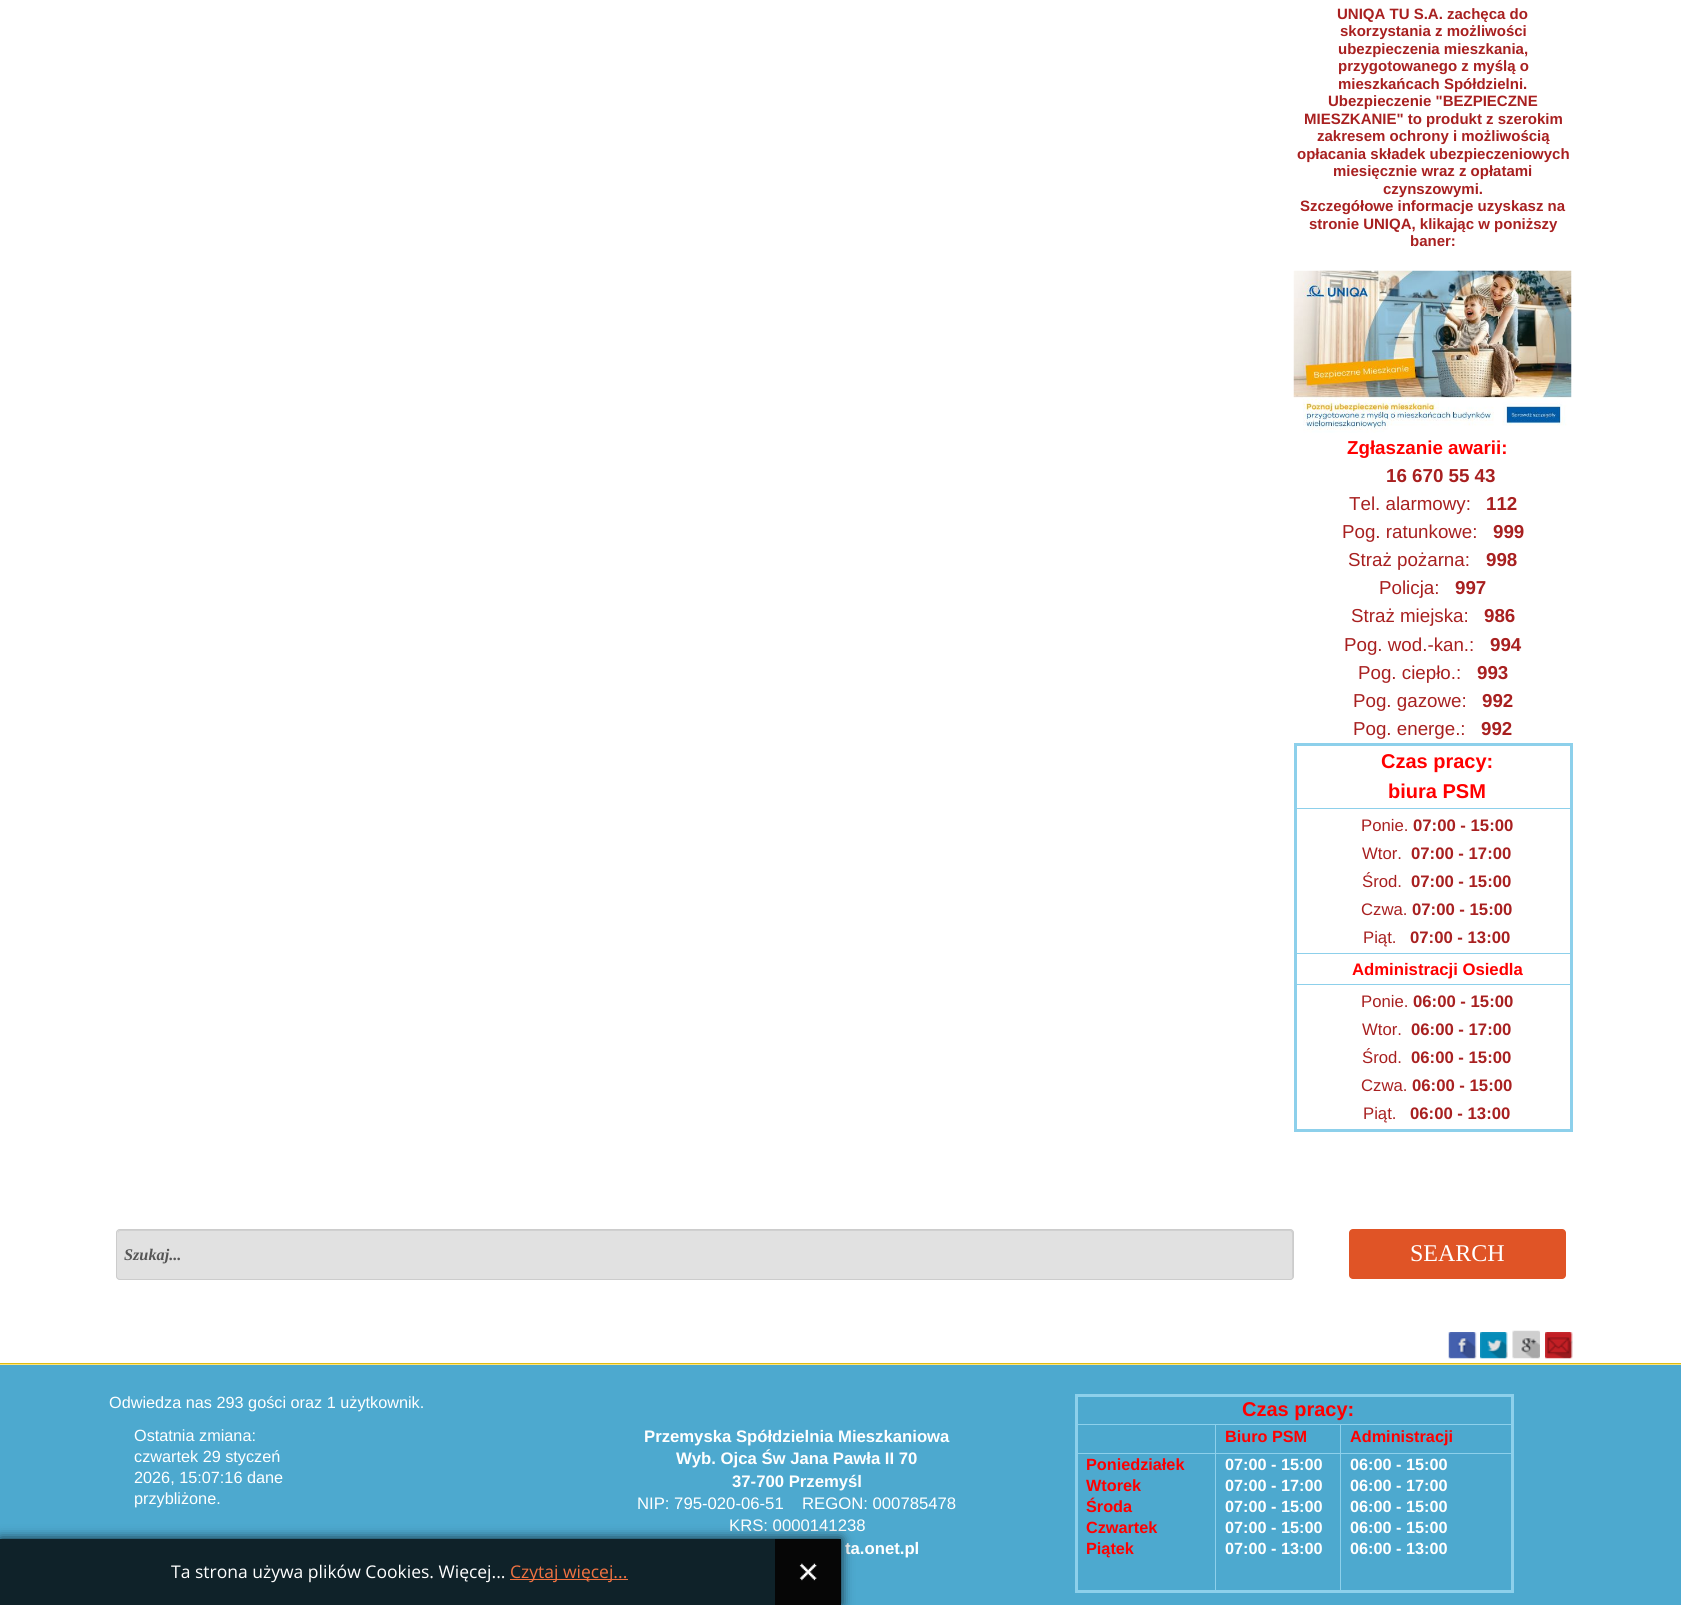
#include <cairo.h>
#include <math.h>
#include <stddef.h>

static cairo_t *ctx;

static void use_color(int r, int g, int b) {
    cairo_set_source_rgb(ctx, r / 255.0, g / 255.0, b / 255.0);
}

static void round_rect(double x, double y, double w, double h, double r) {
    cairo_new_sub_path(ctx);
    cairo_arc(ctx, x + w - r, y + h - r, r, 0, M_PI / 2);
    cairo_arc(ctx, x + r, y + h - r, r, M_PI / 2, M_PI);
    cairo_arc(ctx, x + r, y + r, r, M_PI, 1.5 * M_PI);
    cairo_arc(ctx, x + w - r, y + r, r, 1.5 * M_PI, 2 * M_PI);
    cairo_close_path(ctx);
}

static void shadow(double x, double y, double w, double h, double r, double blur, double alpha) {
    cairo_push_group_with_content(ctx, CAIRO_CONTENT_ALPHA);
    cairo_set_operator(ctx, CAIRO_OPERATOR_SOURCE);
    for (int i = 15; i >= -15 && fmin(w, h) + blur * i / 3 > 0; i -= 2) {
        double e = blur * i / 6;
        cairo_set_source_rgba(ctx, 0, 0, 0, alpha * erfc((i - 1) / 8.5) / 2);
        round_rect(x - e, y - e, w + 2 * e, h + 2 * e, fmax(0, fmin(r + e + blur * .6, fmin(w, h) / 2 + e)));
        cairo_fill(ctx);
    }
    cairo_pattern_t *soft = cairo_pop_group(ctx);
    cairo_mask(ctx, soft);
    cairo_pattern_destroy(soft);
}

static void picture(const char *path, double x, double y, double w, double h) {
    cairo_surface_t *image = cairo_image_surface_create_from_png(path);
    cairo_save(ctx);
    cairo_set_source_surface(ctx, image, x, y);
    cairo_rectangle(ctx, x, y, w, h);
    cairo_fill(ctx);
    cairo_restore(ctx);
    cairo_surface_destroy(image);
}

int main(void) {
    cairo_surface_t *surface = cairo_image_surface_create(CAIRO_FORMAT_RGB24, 1681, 1605);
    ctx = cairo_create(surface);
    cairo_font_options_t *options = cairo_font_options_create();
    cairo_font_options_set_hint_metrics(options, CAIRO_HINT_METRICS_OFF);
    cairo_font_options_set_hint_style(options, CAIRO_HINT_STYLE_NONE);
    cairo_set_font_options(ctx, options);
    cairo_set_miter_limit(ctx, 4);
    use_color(255, 255, 255);
    cairo_paint(ctx);
    cairo_select_font_face(ctx, "Liberation Sans", CAIRO_FONT_SLANT_NORMAL, CAIRO_FONT_WEIGHT_BOLD);
    cairo_set_font_size(ctx, 15);
    use_color(168, 32, 32);
    cairo_move_to(ctx, 1337, 19);
    cairo_show_text(ctx, "UNIQA TU S.A. zachęca do");
    cairo_move_to(ctx, 1340, 36);
    cairo_show_text(ctx, "skorzystania z możliwości");
    cairo_move_to(ctx, 1338, 54);
    cairo_show_text(ctx, "ubezpieczenia mieszkania,");
    cairo_move_to(ctx, 1338, 71);
    cairo_show_text(ctx, "przygotowanego z myślą o");
    cairo_move_to(ctx, 1338, 89);
    cairo_show_text(ctx, "mieszkańcach Spółdzielni.");
    cairo_move_to(ctx, 1328, 106);
    cairo_show_text(ctx, "Ubezpieczenie \"BEZPIECZNE");
    cairo_move_to(ctx, 1304, 124);
    cairo_show_text(ctx, "MIESZKANIE\" to produkt z szerokim");
    cairo_move_to(ctx, 1317, 141);
    cairo_show_text(ctx, "zakresem ochrony i możliwością");
    cairo_move_to(ctx, 1297, 159);
    cairo_show_text(ctx, "opłacania składek ubezpieczeniowych");
    cairo_move_to(ctx, 1333, 176);
    cairo_show_text(ctx, "miesięcznie wraz z opłatami");
    cairo_move_to(ctx, 1383, 194);
    cairo_show_text(ctx, "czynszowymi.");
    cairo_move_to(ctx, 1300, 211);
    cairo_show_text(ctx, "Szczegółowe informacje uzyskasz na");
    cairo_move_to(ctx, 1309, 229);
    cairo_show_text(ctx, "stronie UNIQA, klikając w poniższy");
    cairo_move_to(ctx, 1410, 246);
    cairo_show_text(ctx, "baner:");
    picture("img1.png", 1293, 270, 279, 163);
    cairo_set_font_size(ctx, 18.75);
    use_color(255, 0, 0);
    cairo_move_to(ctx, 1347, 454);
    cairo_show_text(ctx, "Zgłaszanie awarii:");
    use_color(168, 32, 32);
    cairo_move_to(ctx, 1386, 482);
    cairo_show_text(ctx, "16 670 55 43");
    cairo_select_font_face(ctx, "Liberation Sans", CAIRO_FONT_SLANT_NORMAL, CAIRO_FONT_WEIGHT_NORMAL);
    cairo_move_to(ctx, 1349, 510);
    cairo_show_text(ctx, "Tel. alarmowy:");
    cairo_select_font_face(ctx, "Liberation Sans", CAIRO_FONT_SLANT_NORMAL, CAIRO_FONT_WEIGHT_BOLD);
    cairo_move_to(ctx, 1486, 510);
    cairo_show_text(ctx, "112");
    cairo_select_font_face(ctx, "Liberation Sans", CAIRO_FONT_SLANT_NORMAL, CAIRO_FONT_WEIGHT_NORMAL);
    cairo_move_to(ctx, 1342, 538);
    cairo_show_text(ctx, "Pog. ratunkowe:");
    cairo_select_font_face(ctx, "Liberation Sans", CAIRO_FONT_SLANT_NORMAL, CAIRO_FONT_WEIGHT_BOLD);
    cairo_move_to(ctx, 1493, 538);
    cairo_show_text(ctx, "999");
    cairo_select_font_face(ctx, "Liberation Sans", CAIRO_FONT_SLANT_NORMAL, CAIRO_FONT_WEIGHT_NORMAL);
    cairo_move_to(ctx, 1348, 566);
    cairo_show_text(ctx, "Straż pożarna:");
    cairo_select_font_face(ctx, "Liberation Sans", CAIRO_FONT_SLANT_NORMAL, CAIRO_FONT_WEIGHT_BOLD);
    cairo_move_to(ctx, 1486, 566);
    cairo_show_text(ctx, "998");
    cairo_select_font_face(ctx, "Liberation Sans", CAIRO_FONT_SLANT_NORMAL, CAIRO_FONT_WEIGHT_NORMAL);
    cairo_move_to(ctx, 1379, 594);
    cairo_show_text(ctx, "Policja:");
    cairo_select_font_face(ctx, "Liberation Sans", CAIRO_FONT_SLANT_NORMAL, CAIRO_FONT_WEIGHT_BOLD);
    cairo_move_to(ctx, 1455, 594);
    cairo_show_text(ctx, "997");
    cairo_select_font_face(ctx, "Liberation Sans", CAIRO_FONT_SLANT_NORMAL, CAIRO_FONT_WEIGHT_NORMAL);
    cairo_move_to(ctx, 1351, 622);
    cairo_show_text(ctx, "Straż miejska:");
    cairo_select_font_face(ctx, "Liberation Sans", CAIRO_FONT_SLANT_NORMAL, CAIRO_FONT_WEIGHT_BOLD);
    cairo_move_to(ctx, 1484, 622);
    cairo_show_text(ctx, "986");
    cairo_select_font_face(ctx, "Liberation Sans", CAIRO_FONT_SLANT_NORMAL, CAIRO_FONT_WEIGHT_NORMAL);
    cairo_move_to(ctx, 1344, 651);
    cairo_show_text(ctx, "Pog. wod.-kan.:");
    cairo_select_font_face(ctx, "Liberation Sans", CAIRO_FONT_SLANT_NORMAL, CAIRO_FONT_WEIGHT_BOLD);
    cairo_move_to(ctx, 1490, 651);
    cairo_show_text(ctx, "994");
    cairo_select_font_face(ctx, "Liberation Sans", CAIRO_FONT_SLANT_NORMAL, CAIRO_FONT_WEIGHT_NORMAL);
    cairo_move_to(ctx, 1358, 679);
    cairo_show_text(ctx, "Pog. ciepło.:");
    cairo_select_font_face(ctx, "Liberation Sans", CAIRO_FONT_SLANT_NORMAL, CAIRO_FONT_WEIGHT_BOLD);
    cairo_move_to(ctx, 1477, 679);
    cairo_show_text(ctx, "993");
    cairo_select_font_face(ctx, "Liberation Sans", CAIRO_FONT_SLANT_NORMAL, CAIRO_FONT_WEIGHT_NORMAL);
    cairo_move_to(ctx, 1353, 707);
    cairo_show_text(ctx, "Pog. gazowe:");
    cairo_select_font_face(ctx, "Liberation Sans", CAIRO_FONT_SLANT_NORMAL, CAIRO_FONT_WEIGHT_BOLD);
    cairo_move_to(ctx, 1482, 707);
    cairo_show_text(ctx, "992");
    cairo_select_font_face(ctx, "Liberation Sans", CAIRO_FONT_SLANT_NORMAL, CAIRO_FONT_WEIGHT_NORMAL);
    cairo_move_to(ctx, 1353, 735);
    cairo_show_text(ctx, "Pog. energe.:");
    cairo_select_font_face(ctx, "Liberation Sans", CAIRO_FONT_SLANT_NORMAL, CAIRO_FONT_WEIGHT_BOLD);
    cairo_move_to(ctx, 1481, 735);
    cairo_show_text(ctx, "992");
    use_color(141, 208, 235);
    cairo_rectangle(ctx, 1294, 743, 279, 3);
    cairo_fill(ctx);
    cairo_rectangle(ctx, 1295, 808, 276, 1);
    cairo_fill(ctx);
    cairo_rectangle(ctx, 1295, 953, 276, 1);
    cairo_fill(ctx);
    cairo_rectangle(ctx, 1295, 984, 276, 1);
    cairo_fill(ctx);
    cairo_rectangle(ctx, 1570, 743, 3, 388);
    cairo_fill(ctx);
    cairo_rectangle(ctx, 1294, 1129, 279, 3);
    cairo_fill(ctx);
    cairo_rectangle(ctx, 1294, 743, 3, 388);
    cairo_fill(ctx);
    cairo_set_font_size(ctx, 20);
    use_color(255, 0, 0);
    cairo_move_to(ctx, 1381, 768);
    cairo_show_text(ctx, "Czas pracy:");
    cairo_move_to(ctx, 1388, 798);
    cairo_show_text(ctx, "biura PSM");
    cairo_select_font_face(ctx, "Liberation Sans", CAIRO_FONT_SLANT_NORMAL, CAIRO_FONT_WEIGHT_NORMAL);
    cairo_set_font_size(ctx, 16.7);
    use_color(168, 32, 32);
    cairo_move_to(ctx, 1361, 831);
    cairo_show_text(ctx, "Ponie.");
    cairo_select_font_face(ctx, "Liberation Sans", CAIRO_FONT_SLANT_NORMAL, CAIRO_FONT_WEIGHT_BOLD);
    cairo_move_to(ctx, 1413, 831);
    cairo_show_text(ctx, "07:00 - 15:00");
    cairo_select_font_face(ctx, "Liberation Sans", CAIRO_FONT_SLANT_NORMAL, CAIRO_FONT_WEIGHT_NORMAL);
    cairo_move_to(ctx, 1362, 859);
    cairo_show_text(ctx, "Wtor.");
    cairo_select_font_face(ctx, "Liberation Sans", CAIRO_FONT_SLANT_NORMAL, CAIRO_FONT_WEIGHT_BOLD);
    cairo_move_to(ctx, 1411, 859);
    cairo_show_text(ctx, "07:00 - 17:00");
    cairo_select_font_face(ctx, "Liberation Sans", CAIRO_FONT_SLANT_NORMAL, CAIRO_FONT_WEIGHT_NORMAL);
    cairo_move_to(ctx, 1362, 887);
    cairo_show_text(ctx, "Środ.");
    cairo_select_font_face(ctx, "Liberation Sans", CAIRO_FONT_SLANT_NORMAL, CAIRO_FONT_WEIGHT_BOLD);
    cairo_move_to(ctx, 1411, 887);
    cairo_show_text(ctx, "07:00 - 15:00");
    cairo_select_font_face(ctx, "Liberation Sans", CAIRO_FONT_SLANT_NORMAL, CAIRO_FONT_WEIGHT_NORMAL);
    cairo_move_to(ctx, 1361, 915);
    cairo_show_text(ctx, "Czwa.");
    cairo_select_font_face(ctx, "Liberation Sans", CAIRO_FONT_SLANT_NORMAL, CAIRO_FONT_WEIGHT_BOLD);
    cairo_move_to(ctx, 1412, 915);
    cairo_show_text(ctx, "07:00 - 15:00");
    cairo_select_font_face(ctx, "Liberation Sans", CAIRO_FONT_SLANT_NORMAL, CAIRO_FONT_WEIGHT_NORMAL);
    cairo_move_to(ctx, 1363, 943);
    cairo_show_text(ctx, "Piąt.");
    cairo_select_font_face(ctx, "Liberation Sans", CAIRO_FONT_SLANT_NORMAL, CAIRO_FONT_WEIGHT_BOLD);
    cairo_move_to(ctx, 1410, 943);
    cairo_show_text(ctx, "07:00 - 13:00");
    use_color(255, 0, 0);
    cairo_move_to(ctx, 1352, 975);
    cairo_show_text(ctx, "Administracji Osiedla");
    cairo_select_font_face(ctx, "Liberation Sans", CAIRO_FONT_SLANT_NORMAL, CAIRO_FONT_WEIGHT_NORMAL);
    use_color(168, 32, 32);
    cairo_move_to(ctx, 1361, 1007);
    cairo_show_text(ctx, "Ponie.");
    cairo_select_font_face(ctx, "Liberation Sans", CAIRO_FONT_SLANT_NORMAL, CAIRO_FONT_WEIGHT_BOLD);
    cairo_move_to(ctx, 1413, 1007);
    cairo_show_text(ctx, "06:00 - 15:00");
    cairo_select_font_face(ctx, "Liberation Sans", CAIRO_FONT_SLANT_NORMAL, CAIRO_FONT_WEIGHT_NORMAL);
    cairo_move_to(ctx, 1362, 1035);
    cairo_show_text(ctx, "Wtor.");
    cairo_select_font_face(ctx, "Liberation Sans", CAIRO_FONT_SLANT_NORMAL, CAIRO_FONT_WEIGHT_BOLD);
    cairo_move_to(ctx, 1411, 1035);
    cairo_show_text(ctx, "06:00 - 17:00");
    cairo_select_font_face(ctx, "Liberation Sans", CAIRO_FONT_SLANT_NORMAL, CAIRO_FONT_WEIGHT_NORMAL);
    cairo_move_to(ctx, 1362, 1063);
    cairo_show_text(ctx, "Środ.");
    cairo_select_font_face(ctx, "Liberation Sans", CAIRO_FONT_SLANT_NORMAL, CAIRO_FONT_WEIGHT_BOLD);
    cairo_move_to(ctx, 1411, 1063);
    cairo_show_text(ctx, "06:00 - 15:00");
    cairo_select_font_face(ctx, "Liberation Sans", CAIRO_FONT_SLANT_NORMAL, CAIRO_FONT_WEIGHT_NORMAL);
    cairo_move_to(ctx, 1361, 1091);
    cairo_show_text(ctx, "Czwa.");
    cairo_select_font_face(ctx, "Liberation Sans", CAIRO_FONT_SLANT_NORMAL, CAIRO_FONT_WEIGHT_BOLD);
    cairo_move_to(ctx, 1412, 1091);
    cairo_show_text(ctx, "06:00 - 15:00");
    cairo_select_font_face(ctx, "Liberation Sans", CAIRO_FONT_SLANT_NORMAL, CAIRO_FONT_WEIGHT_NORMAL);
    cairo_move_to(ctx, 1363, 1119);
    cairo_show_text(ctx, "Piąt.");
    cairo_select_font_face(ctx, "Liberation Sans", CAIRO_FONT_SLANT_NORMAL, CAIRO_FONT_WEIGHT_BOLD);
    cairo_move_to(ctx, 1410, 1119);
    cairo_show_text(ctx, "06:00 - 13:00");
    use_color(225, 225, 225);
    round_rect(116, 1229, 1178, 51, 4);
    cairo_fill(ctx);
    use_color(208, 208, 208);
    cairo_new_path(ctx);
    cairo_move_to(ctx, 120, 1231);
    cairo_line_to(ctx, 1290, 1231);
    cairo_curve_to(ctx, 1291, 1231, 1292, 1232, 1292, 1234);
    cairo_line_to(ctx, 1292, 1279);
    cairo_curve_to(ctx, 1293, 1278, 1293, 1277, 1293, 1276);
    cairo_line_to(ctx, 1293, 1232);
    cairo_curve_to(ctx, 1293, 1231, 1292, 1230, 1290, 1230);
    cairo_line_to(ctx, 120, 1230);
    cairo_curve_to(ctx, 119, 1230, 118, 1231, 118, 1232);
    cairo_line_to(ctx, 118, 1234);
    cairo_curve_to(ctx, 118, 1232, 119, 1231, 120, 1231);
    cairo_close_path(ctx);
    cairo_fill(ctx);
    round_rect(116.5, 1229.5, 1177, 50, 3.5);
    use_color(204, 204, 204);
    cairo_set_line_width(ctx, 1);
    cairo_stroke(ctx);
    cairo_select_font_face(ctx, "Liberation Serif", CAIRO_FONT_SLANT_ITALIC, CAIRO_FONT_WEIGHT_BOLD);
    cairo_set_font_size(ctx, 16.25);
    use_color(85, 85, 85);
    cairo_move_to(ctx, 124, 1260);
    cairo_show_text(ctx, "Szukaj...");
    use_color(224, 84, 38);
    round_rect(1349, 1229, 217, 50, 4);
    cairo_fill(ctx);
    cairo_select_font_face(ctx, "Liberation Serif", CAIRO_FONT_SLANT_NORMAL, CAIRO_FONT_WEIGHT_NORMAL);
    cairo_set_font_size(ctx, 24);
    use_color(255, 255, 255);
    cairo_move_to(ctx, 1410, 1261);
    cairo_show_text(ctx, "SEARCH");
    picture("img2.png", 1448, 1332, 29, 27);
    picture("img3.png", 1480, 1332, 28, 27);
    picture("img4.png", 1512, 1330, 28, 29);
    picture("img5.png", 1545, 1332, 28, 27);
    use_color(77, 169, 207);
    cairo_rectangle(ctx, 0, 1365, 1681, 240);
    cairo_fill(ctx);
    use_color(254, 230, 120);
    cairo_rectangle(ctx, 0, 1364, 1681, 1);
    cairo_fill(ctx);
    use_color(224, 187, 18);
    cairo_rectangle(ctx, 0, 1363, 1681, 1);
    cairo_fill(ctx);
    cairo_select_font_face(ctx, "Liberation Sans", CAIRO_FONT_SLANT_NORMAL, CAIRO_FONT_WEIGHT_NORMAL);
    cairo_set_font_size(ctx, 16.25);
    use_color(255, 255, 255);
    cairo_move_to(ctx, 109, 1408);
    cairo_show_text(ctx, "Odwiedza nas 293 gości oraz 1 użytkownik.");
    cairo_move_to(ctx, 134, 1441);
    cairo_show_text(ctx, "Ostatnia zmiana:");
    cairo_move_to(ctx, 134, 1462);
    cairo_show_text(ctx, "czwartek 29 styczeń");
    cairo_move_to(ctx, 134, 1483);
    cairo_show_text(ctx, "2026, 15:07:16 dane");
    cairo_move_to(ctx, 134, 1504);
    cairo_show_text(ctx, "przybliżone.");
    cairo_select_font_face(ctx, "Liberation Sans", CAIRO_FONT_SLANT_NORMAL, CAIRO_FONT_WEIGHT_BOLD);
    cairo_set_font_size(ctx, 16.7);
    cairo_move_to(ctx, 644, 1442);
    cairo_show_text(ctx, "Przemyska Spółdzielnia Mieszkaniowa");
    cairo_move_to(ctx, 676, 1464);
    cairo_show_text(ctx, "Wyb. Ojca Św Jana Pawła II 70");
    cairo_move_to(ctx, 732, 1487);
    cairo_show_text(ctx, "37-700 Przemyśl");
    cairo_select_font_face(ctx, "Liberation Sans", CAIRO_FONT_SLANT_NORMAL, CAIRO_FONT_WEIGHT_NORMAL);
    cairo_move_to(ctx, 637, 1509);
    cairo_show_text(ctx, "NIP: 795-020-06-51");
    cairo_move_to(ctx, 802, 1509);
    cairo_show_text(ctx, "REGON: 000785478");
    cairo_move_to(ctx, 729, 1531);
    cairo_show_text(ctx, "KRS: 0000141238");
    cairo_select_font_face(ctx, "Liberation Sans", CAIRO_FONT_SLANT_NORMAL, CAIRO_FONT_WEIGHT_BOLD);
    cairo_move_to(ctx, 845, 1554);
    cairo_show_text(ctx, "ta.onet.pl");
    use_color(141, 208, 235);
    cairo_rectangle(ctx, 1075, 1394, 439, 3);
    cairo_fill(ctx);
    cairo_rectangle(ctx, 1075, 1424, 438, 1);
    cairo_fill(ctx);
    cairo_rectangle(ctx, 1075, 1453, 438, 1);
    cairo_fill(ctx);
    cairo_rectangle(ctx, 1511, 1394, 3, 199);
    cairo_fill(ctx);
    cairo_rectangle(ctx, 1215, 1424, 1, 167);
    cairo_fill(ctx);
    cairo_rectangle(ctx, 1340, 1424, 1, 167);
    cairo_fill(ctx);
    cairo_rectangle(ctx, 1075, 1590, 439, 3);
    cairo_fill(ctx);
    cairo_rectangle(ctx, 1075, 1394, 3, 199);
    cairo_fill(ctx);
    cairo_set_font_size(ctx, 20);
    use_color(255, 0, 0);
    cairo_move_to(ctx, 1242, 1416);
    cairo_show_text(ctx, "Czas pracy:");
    cairo_set_font_size(ctx, 16.25);
    cairo_move_to(ctx, 1225, 1442);
    cairo_show_text(ctx, "Biuro PSM");
    cairo_move_to(ctx, 1350, 1442);
    cairo_show_text(ctx, "Administracji");
    cairo_move_to(ctx, 1086, 1470);
    cairo_show_text(ctx, "Poniedziałek");
    cairo_move_to(ctx, 1086, 1491);
    cairo_show_text(ctx, "Wtorek");
    cairo_move_to(ctx, 1086, 1512);
    cairo_show_text(ctx, "Środa");
    cairo_move_to(ctx, 1086, 1533);
    cairo_show_text(ctx, "Czwartek");
    cairo_move_to(ctx, 1086, 1554);
    cairo_show_text(ctx, "Piątek");
    use_color(255, 255, 255);
    cairo_move_to(ctx, 1225, 1470);
    cairo_show_text(ctx, "07:00 - 15:00");
    cairo_move_to(ctx, 1225, 1491);
    cairo_show_text(ctx, "07:00 - 17:00");
    cairo_move_to(ctx, 1225, 1512);
    cairo_show_text(ctx, "07:00 - 15:00");
    cairo_move_to(ctx, 1225, 1533);
    cairo_show_text(ctx, "07:00 - 15:00");
    cairo_move_to(ctx, 1225, 1554);
    cairo_show_text(ctx, "07:00 - 13:00");
    cairo_move_to(ctx, 1350, 1470);
    cairo_show_text(ctx, "06:00 - 15:00");
    cairo_move_to(ctx, 1350, 1491);
    cairo_show_text(ctx, "06:00 - 17:00");
    cairo_move_to(ctx, 1350, 1512);
    cairo_show_text(ctx, "06:00 - 15:00");
    cairo_move_to(ctx, 1350, 1533);
    cairo_show_text(ctx, "06:00 - 15:00");
    cairo_move_to(ctx, 1350, 1554);
    cairo_show_text(ctx, "06:00 - 13:00");
    cairo_save(ctx);
    cairo_set_fill_rule(ctx, CAIRO_FILL_RULE_EVEN_ODD);
    cairo_new_path(ctx);
    cairo_move_to(ctx, 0, 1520);
    cairo_line_to(ctx, 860, 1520);
    cairo_line_to(ctx, 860, 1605);
    cairo_line_to(ctx, 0, 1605);
    cairo_close_path(ctx);
    cairo_move_to(ctx, 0, 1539);
    cairo_line_to(ctx, 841, 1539);
    cairo_line_to(ctx, 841, 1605);
    cairo_line_to(ctx, 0, 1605);
    cairo_close_path(ctx);
    cairo_clip(ctx);
    use_color(0, 0, 0);
    shadow(0, 1539, 841, 66, 0, 6, 0.8);
    cairo_restore(ctx);
    cairo_set_source_rgba(ctx, 0, 0, 0, 0.8);
    cairo_rectangle(ctx, 0, 1539, 775, 66);
    cairo_fill(ctx);
    cairo_select_font_face(ctx, "Open Sans", CAIRO_FONT_SLANT_NORMAL, CAIRO_FONT_WEIGHT_NORMAL);
    cairo_set_font_size(ctx, 17.5);
    use_color(255, 255, 255);
    cairo_move_to(ctx, 171, 1578);
    cairo_show_text(ctx, "Ta strona używa plików Cookies. Więcej...");
    use_color(240, 114, 65);
    cairo_rectangle(ctx, 510, 1579, 118, 1);
    cairo_fill(ctx);
    cairo_move_to(ctx, 510, 1578);
    cairo_show_text(ctx, "Czytaj więcej...");
    use_color(6, 6, 6);
    cairo_rectangle(ctx, 775, 1539, 66, 66);
    cairo_fill(ctx);
    picture("img6.png", 799, 1563, 18, 18);
    cairo_surface_write_to_png(surface, "result.png");
    cairo_font_options_destroy(options);
    cairo_destroy(ctx);
    cairo_surface_destroy(surface);
    return 0;
}
